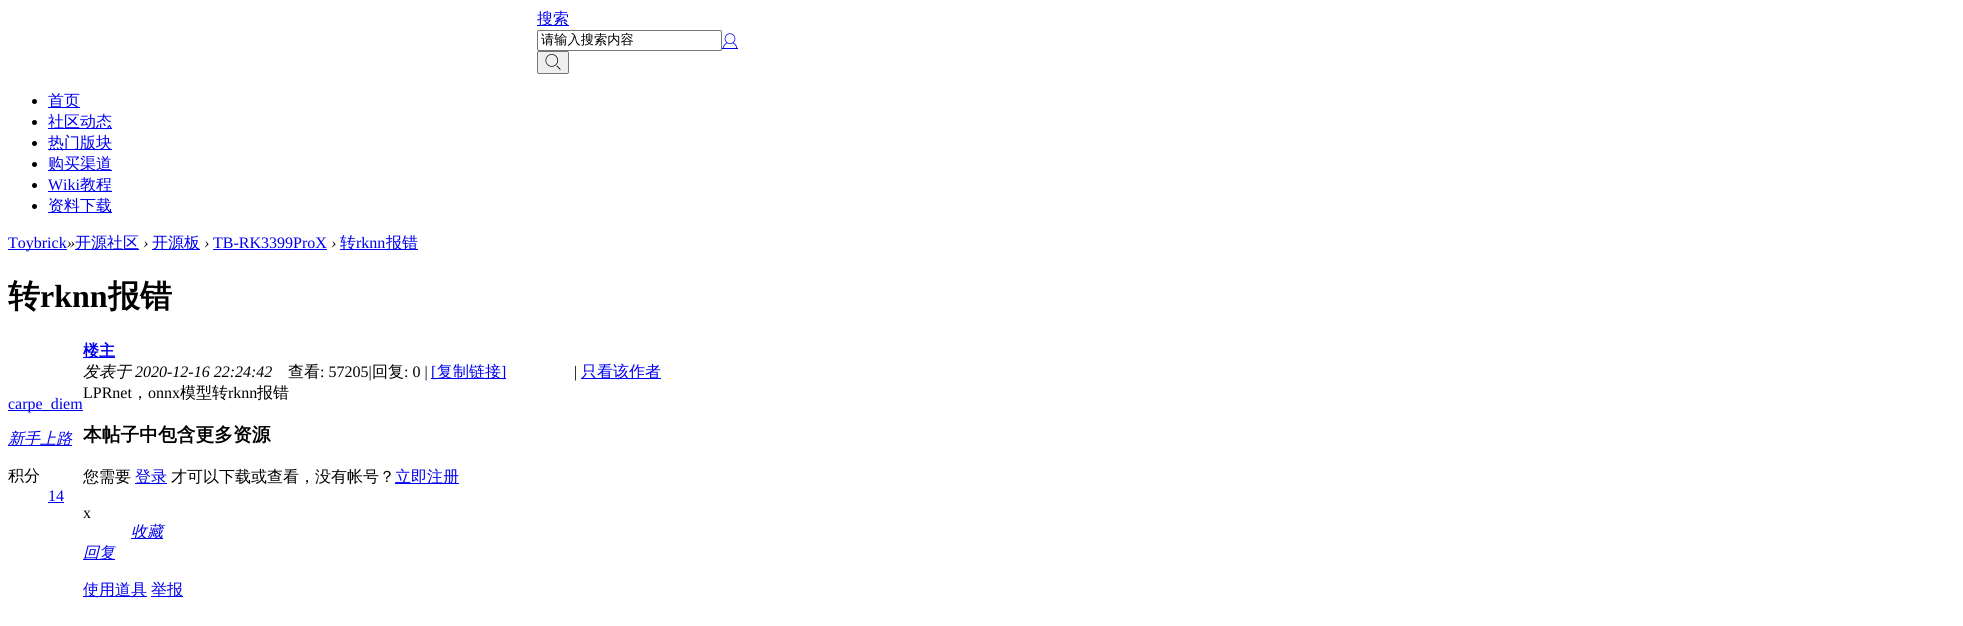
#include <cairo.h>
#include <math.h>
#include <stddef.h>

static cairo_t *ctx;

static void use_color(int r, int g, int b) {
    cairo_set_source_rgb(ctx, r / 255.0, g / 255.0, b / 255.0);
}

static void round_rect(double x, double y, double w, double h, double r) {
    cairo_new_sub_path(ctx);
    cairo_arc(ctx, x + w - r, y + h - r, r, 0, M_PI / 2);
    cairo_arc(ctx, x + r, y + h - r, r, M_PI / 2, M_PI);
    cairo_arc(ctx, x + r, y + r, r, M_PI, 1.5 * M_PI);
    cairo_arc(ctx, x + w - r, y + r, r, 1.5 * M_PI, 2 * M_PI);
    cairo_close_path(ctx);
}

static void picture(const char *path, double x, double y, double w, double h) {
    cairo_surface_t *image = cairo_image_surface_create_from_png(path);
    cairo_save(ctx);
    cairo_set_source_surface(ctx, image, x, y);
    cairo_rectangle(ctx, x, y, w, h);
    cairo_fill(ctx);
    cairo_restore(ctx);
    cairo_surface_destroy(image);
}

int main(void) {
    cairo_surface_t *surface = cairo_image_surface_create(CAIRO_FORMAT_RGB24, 1963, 626);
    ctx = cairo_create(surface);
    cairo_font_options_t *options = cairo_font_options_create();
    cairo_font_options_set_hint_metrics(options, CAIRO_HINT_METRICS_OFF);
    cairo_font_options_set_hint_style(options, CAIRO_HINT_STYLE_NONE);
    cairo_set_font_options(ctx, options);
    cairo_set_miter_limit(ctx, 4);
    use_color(255, 255, 255);
    cairo_paint(ctx);
    use_color(0, 0, 238);
    cairo_rectangle(ctx, 537, 25, 32, 1);
    cairo_fill(ctx);
    cairo_select_font_face(ctx, "WenQuanYi Zen Hei Medium", CAIRO_FONT_SLANT_NORMAL, CAIRO_FONT_WEIGHT_NORMAL);
    cairo_set_font_size(ctx, 16);
    cairo_move_to(ctx, 537, 24);
    cairo_show_text(ctx, "搜索");
    round_rect(537.5, 30.5, 184, 20, 1.5);
    use_color(118, 118, 118);
    cairo_set_line_width(ctx, 1);
    cairo_stroke(ctx);
    cairo_set_font_size(ctx, 13.25);
    use_color(0, 0, 0);
    cairo_move_to(ctx, 541, 44);
    cairo_show_text(ctx, "请输入搜索内容");
    use_color(239, 239, 239);
    round_rect(537.5, 51.5, 31, 22, 1.5);
    cairo_fill_preserve(ctx);
    use_color(118, 118, 118);
    cairo_stroke(ctx);
    picture("img1.png", 545, 54, 16, 16);
    picture("img2.png", 722, 33, 16, 15);
    use_color(0, 0, 238);
    cairo_rectangle(ctx, 722, 48, 16, 1);
    cairo_fill(ctx);
    use_color(0, 0, 0);
    cairo_arc(ctx, 34.5, 101.5, 2.5, 0, 2 * M_PI);
    cairo_fill(ctx);
    use_color(0, 0, 238);
    cairo_rectangle(ctx, 48, 107, 32, 1);
    cairo_fill(ctx);
    cairo_set_font_size(ctx, 16);
    cairo_move_to(ctx, 48, 106);
    cairo_show_text(ctx, "首页");
    use_color(0, 0, 0);
    cairo_new_path(ctx);
    cairo_arc(ctx, 34.5, 122.5, 2.5, 0, 2 * M_PI);
    cairo_fill(ctx);
    use_color(0, 0, 238);
    cairo_rectangle(ctx, 48, 128, 64, 1);
    cairo_fill(ctx);
    cairo_move_to(ctx, 48, 127);
    cairo_show_text(ctx, "社区动态");
    use_color(0, 0, 0);
    cairo_new_path(ctx);
    cairo_arc(ctx, 34.5, 143.5, 2.5, 0, 2 * M_PI);
    cairo_fill(ctx);
    use_color(0, 0, 238);
    cairo_rectangle(ctx, 48, 149, 64, 1);
    cairo_fill(ctx);
    cairo_move_to(ctx, 48, 148);
    cairo_show_text(ctx, "热门版块");
    use_color(0, 0, 0);
    cairo_new_path(ctx);
    cairo_arc(ctx, 34.5, 164.5, 2.5, 0, 2 * M_PI);
    cairo_fill(ctx);
    use_color(0, 0, 238);
    cairo_rectangle(ctx, 48, 170, 64, 1);
    cairo_fill(ctx);
    cairo_move_to(ctx, 48, 169);
    cairo_show_text(ctx, "购买渠道");
    use_color(0, 0, 0);
    cairo_new_path(ctx);
    cairo_arc(ctx, 34.5, 185.5, 2.5, 0, 2 * M_PI);
    cairo_fill(ctx);
    cairo_select_font_face(ctx, "Liberation Serif", CAIRO_FONT_SLANT_NORMAL, CAIRO_FONT_WEIGHT_NORMAL);
    use_color(0, 0, 238);
    cairo_move_to(ctx, 48, 190);
    cairo_show_text(ctx, "Wiki");
    cairo_rectangle(ctx, 48, 191, 64, 1);
    cairo_fill(ctx);
    cairo_select_font_face(ctx, "WenQuanYi Zen Hei Medium", CAIRO_FONT_SLANT_NORMAL, CAIRO_FONT_WEIGHT_NORMAL);
    cairo_move_to(ctx, 80, 190);
    cairo_show_text(ctx, "教程");
    use_color(0, 0, 0);
    cairo_new_path(ctx);
    cairo_arc(ctx, 34.5, 206.5, 2.5, 0, 2 * M_PI);
    cairo_fill(ctx);
    use_color(0, 0, 238);
    cairo_rectangle(ctx, 48, 212, 64, 1);
    cairo_fill(ctx);
    cairo_move_to(ctx, 48, 211);
    cairo_show_text(ctx, "资料下载");
    cairo_rectangle(ctx, 8, 249, 59, 1);
    cairo_fill(ctx);
    cairo_select_font_face(ctx, "Liberation Serif", CAIRO_FONT_SLANT_NORMAL, CAIRO_FONT_WEIGHT_NORMAL);
    cairo_move_to(ctx, 8, 248);
    cairo_show_text(ctx, "Toybrick");
    cairo_select_font_face(ctx, "Liberation Serif", CAIRO_FONT_SLANT_ITALIC, CAIRO_FONT_WEIGHT_NORMAL);
    use_color(0, 0, 0);
    cairo_move_to(ctx, 67, 248);
    cairo_show_text(ctx, "»");
    use_color(0, 0, 238);
    cairo_rectangle(ctx, 75, 249, 64, 1);
    cairo_fill(ctx);
    cairo_select_font_face(ctx, "WenQuanYi Zen Hei Medium", CAIRO_FONT_SLANT_NORMAL, CAIRO_FONT_WEIGHT_NORMAL);
    cairo_move_to(ctx, 75, 248);
    cairo_show_text(ctx, "开源社区");
    cairo_select_font_face(ctx, "Liberation Serif", CAIRO_FONT_SLANT_ITALIC, CAIRO_FONT_WEIGHT_NORMAL);
    use_color(0, 0, 0);
    cairo_move_to(ctx, 143, 248);
    cairo_show_text(ctx, "›");
    use_color(0, 0, 238);
    cairo_rectangle(ctx, 152, 249, 48, 1);
    cairo_fill(ctx);
    cairo_select_font_face(ctx, "WenQuanYi Zen Hei Medium", CAIRO_FONT_SLANT_NORMAL, CAIRO_FONT_WEIGHT_NORMAL);
    cairo_move_to(ctx, 152, 248);
    cairo_show_text(ctx, "开源板");
    cairo_select_font_face(ctx, "Liberation Serif", CAIRO_FONT_SLANT_ITALIC, CAIRO_FONT_WEIGHT_NORMAL);
    use_color(0, 0, 0);
    cairo_move_to(ctx, 204, 248);
    cairo_show_text(ctx, "›");
    cairo_select_font_face(ctx, "Liberation Serif", CAIRO_FONT_SLANT_NORMAL, CAIRO_FONT_WEIGHT_NORMAL);
    use_color(0, 0, 238);
    cairo_move_to(ctx, 213, 248);
    cairo_show_text(ctx, "TB-RK3399ProX");
    cairo_rectangle(ctx, 213, 249, 114, 1);
    cairo_fill(ctx);
    cairo_select_font_face(ctx, "Liberation Serif", CAIRO_FONT_SLANT_ITALIC, CAIRO_FONT_WEIGHT_NORMAL);
    use_color(0, 0, 0);
    cairo_move_to(ctx, 331, 248);
    cairo_show_text(ctx, "›");
    use_color(0, 0, 238);
    cairo_rectangle(ctx, 340, 249, 78, 1);
    cairo_fill(ctx);
    cairo_select_font_face(ctx, "WenQuanYi Zen Hei Medium", CAIRO_FONT_SLANT_NORMAL, CAIRO_FONT_WEIGHT_NORMAL);
    cairo_move_to(ctx, 340, 248);
    cairo_show_text(ctx, "转");
    cairo_select_font_face(ctx, "Liberation Serif", CAIRO_FONT_SLANT_NORMAL, CAIRO_FONT_WEIGHT_NORMAL);
    cairo_move_to(ctx, 356, 248);
    cairo_show_text(ctx, "rknn");
    cairo_select_font_face(ctx, "WenQuanYi Zen Hei Medium", CAIRO_FONT_SLANT_NORMAL, CAIRO_FONT_WEIGHT_NORMAL);
    cairo_move_to(ctx, 386, 248);
    cairo_show_text(ctx, "报错");
    cairo_select_font_face(ctx, "WenQuanYi Zen Hei", CAIRO_FONT_SLANT_NORMAL, CAIRO_FONT_WEIGHT_BOLD);
    cairo_set_font_size(ctx, 32);
    use_color(0, 0, 0);
    cairo_move_to(ctx, 8, 307);
    cairo_show_text(ctx, "转");
    cairo_select_font_face(ctx, "Liberation Serif", CAIRO_FONT_SLANT_NORMAL, CAIRO_FONT_WEIGHT_BOLD);
    cairo_move_to(ctx, 40, 307);
    cairo_show_text(ctx, "rknn");
    cairo_select_font_face(ctx, "WenQuanYi Zen Hei", CAIRO_FONT_SLANT_NORMAL, CAIRO_FONT_WEIGHT_BOLD);
    cairo_move_to(ctx, 108, 307);
    cairo_show_text(ctx, "报错");
    use_color(0, 0, 238);
    cairo_rectangle(ctx, 8, 410, 75, 1);
    cairo_fill(ctx);
    cairo_select_font_face(ctx, "Liberation Serif", CAIRO_FONT_SLANT_NORMAL, CAIRO_FONT_WEIGHT_NORMAL);
    cairo_set_font_size(ctx, 16);
    cairo_move_to(ctx, 8, 409);
    cairo_show_text(ctx, "carpe_diem");
    cairo_rectangle(ctx, 8, 445, 64, 1);
    cairo_fill(ctx);
    cairo_select_font_face(ctx, "WenQuanYi Zen Hei Medium", CAIRO_FONT_SLANT_ITALIC, CAIRO_FONT_WEIGHT_NORMAL);
    cairo_move_to(ctx, 8, 444);
    cairo_show_text(ctx, "新手上路");
    cairo_select_font_face(ctx, "WenQuanYi Zen Hei Medium", CAIRO_FONT_SLANT_NORMAL, CAIRO_FONT_WEIGHT_NORMAL);
    use_color(0, 0, 0);
    cairo_move_to(ctx, 8, 481);
    cairo_show_text(ctx, "积分");
    cairo_select_font_face(ctx, "Liberation Serif", CAIRO_FONT_SLANT_NORMAL, CAIRO_FONT_WEIGHT_NORMAL);
    use_color(0, 0, 238);
    cairo_move_to(ctx, 48, 501);
    cairo_show_text(ctx, "14");
    cairo_rectangle(ctx, 48, 502, 16, 1);
    cairo_fill(ctx);
    cairo_rectangle(ctx, 83, 357, 32, 1);
    cairo_fill(ctx);
    cairo_select_font_face(ctx, "WenQuanYi Zen Hei", CAIRO_FONT_SLANT_NORMAL, CAIRO_FONT_WEIGHT_BOLD);
    cairo_move_to(ctx, 83, 356);
    cairo_show_text(ctx, "楼主");
    cairo_select_font_face(ctx, "WenQuanYi Zen Hei Medium", CAIRO_FONT_SLANT_ITALIC, CAIRO_FONT_WEIGHT_NORMAL);
    use_color(0, 0, 0);
    cairo_move_to(ctx, 83, 377);
    cairo_show_text(ctx, "发表于");
    cairo_select_font_face(ctx, "Liberation Serif", CAIRO_FONT_SLANT_ITALIC, CAIRO_FONT_WEIGHT_NORMAL);
    cairo_move_to(ctx, 135, 377);
    cairo_show_text(ctx, "2020-12-16 22:24:42");
    cairo_select_font_face(ctx, "WenQuanYi Zen Hei Medium", CAIRO_FONT_SLANT_NORMAL, CAIRO_FONT_WEIGHT_NORMAL);
    cairo_move_to(ctx, 288, 377);
    cairo_show_text(ctx, "查看");
    cairo_select_font_face(ctx, "Liberation Serif", CAIRO_FONT_SLANT_NORMAL, CAIRO_FONT_WEIGHT_NORMAL);
    cairo_move_to(ctx, 320, 377);
    cairo_show_text(ctx, ": 57205|");
    cairo_select_font_face(ctx, "WenQuanYi Zen Hei Medium", CAIRO_FONT_SLANT_NORMAL, CAIRO_FONT_WEIGHT_NORMAL);
    cairo_move_to(ctx, 372, 377);
    cairo_show_text(ctx, "回复");
    cairo_select_font_face(ctx, "Liberation Serif", CAIRO_FONT_SLANT_NORMAL, CAIRO_FONT_WEIGHT_NORMAL);
    cairo_move_to(ctx, 404, 377);
    cairo_show_text(ctx, ": 0 |");
    use_color(0, 0, 238);
    cairo_rectangle(ctx, 431, 378, 75, 1);
    cairo_fill(ctx);
    cairo_move_to(ctx, 431, 377);
    cairo_show_text(ctx, "[");
    cairo_select_font_face(ctx, "WenQuanYi Zen Hei Medium", CAIRO_FONT_SLANT_NORMAL, CAIRO_FONT_WEIGHT_NORMAL);
    cairo_move_to(ctx, 437, 377);
    cairo_show_text(ctx, "复制链接");
    cairo_select_font_face(ctx, "Liberation Serif", CAIRO_FONT_SLANT_NORMAL, CAIRO_FONT_WEIGHT_NORMAL);
    cairo_move_to(ctx, 501, 377);
    cairo_show_text(ctx, "]");
    use_color(0, 0, 0);
    cairo_move_to(ctx, 574, 377);
    cairo_show_text(ctx, "|");
    use_color(0, 0, 238);
    cairo_rectangle(ctx, 581, 378, 80, 1);
    cairo_fill(ctx);
    cairo_select_font_face(ctx, "WenQuanYi Zen Hei Medium", CAIRO_FONT_SLANT_NORMAL, CAIRO_FONT_WEIGHT_NORMAL);
    cairo_move_to(ctx, 581, 377);
    cairo_show_text(ctx, "只看该作者");
    cairo_select_font_face(ctx, "Liberation Serif", CAIRO_FONT_SLANT_NORMAL, CAIRO_FONT_WEIGHT_NORMAL);
    use_color(0, 0, 0);
    cairo_move_to(ctx, 83, 398);
    cairo_show_text(ctx, "LPRnet");
    cairo_select_font_face(ctx, "WenQuanYi Zen Hei Medium", CAIRO_FONT_SLANT_NORMAL, CAIRO_FONT_WEIGHT_NORMAL);
    cairo_move_to(ctx, 132, 398);
    cairo_show_text(ctx, "，");
    cairo_select_font_face(ctx, "Liberation Serif", CAIRO_FONT_SLANT_NORMAL, CAIRO_FONT_WEIGHT_NORMAL);
    cairo_move_to(ctx, 148, 398);
    cairo_show_text(ctx, "onnx");
    cairo_select_font_face(ctx, "WenQuanYi Zen Hei Medium", CAIRO_FONT_SLANT_NORMAL, CAIRO_FONT_WEIGHT_NORMAL);
    cairo_move_to(ctx, 180, 398);
    cairo_show_text(ctx, "模型转");
    cairo_select_font_face(ctx, "Liberation Serif", CAIRO_FONT_SLANT_NORMAL, CAIRO_FONT_WEIGHT_NORMAL);
    cairo_move_to(ctx, 228, 398);
    cairo_show_text(ctx, "rknn");
    cairo_select_font_face(ctx, "WenQuanYi Zen Hei Medium", CAIRO_FONT_SLANT_NORMAL, CAIRO_FONT_WEIGHT_NORMAL);
    cairo_move_to(ctx, 257, 398);
    cairo_show_text(ctx, "报错");
    cairo_select_font_face(ctx, "WenQuanYi Zen Hei", CAIRO_FONT_SLANT_NORMAL, CAIRO_FONT_WEIGHT_BOLD);
    cairo_set_font_size(ctx, 18.75);
    cairo_move_to(ctx, 83, 441);
    cairo_show_text(ctx, "本帖子中包含更多资源");
    cairo_select_font_face(ctx, "WenQuanYi Zen Hei Medium", CAIRO_FONT_SLANT_NORMAL, CAIRO_FONT_WEIGHT_NORMAL);
    cairo_set_font_size(ctx, 16);
    cairo_move_to(ctx, 83, 482);
    cairo_show_text(ctx, "您需要");
    use_color(0, 0, 238);
    cairo_rectangle(ctx, 135, 483, 32, 1);
    cairo_fill(ctx);
    cairo_move_to(ctx, 135, 482);
    cairo_show_text(ctx, "登录");
    use_color(0, 0, 0);
    cairo_move_to(ctx, 171, 482);
    cairo_show_text(ctx, "才可以下载或查看，没有帐号？");
    use_color(0, 0, 238);
    cairo_rectangle(ctx, 395, 483, 64, 1);
    cairo_fill(ctx);
    cairo_move_to(ctx, 395, 482);
    cairo_show_text(ctx, "立即注册");
    cairo_select_font_face(ctx, "Liberation Serif", CAIRO_FONT_SLANT_NORMAL, CAIRO_FONT_WEIGHT_NORMAL);
    use_color(0, 0, 0);
    cairo_move_to(ctx, 83, 518);
    cairo_show_text(ctx, "x");
    use_color(0, 0, 238);
    cairo_rectangle(ctx, 131, 538, 32, 1);
    cairo_fill(ctx);
    cairo_select_font_face(ctx, "WenQuanYi Zen Hei Medium", CAIRO_FONT_SLANT_ITALIC, CAIRO_FONT_WEIGHT_NORMAL);
    cairo_move_to(ctx, 131, 537);
    cairo_show_text(ctx, "收藏");
    cairo_rectangle(ctx, 83, 559, 32, 1);
    cairo_fill(ctx);
    cairo_move_to(ctx, 83, 558);
    cairo_show_text(ctx, "回复");
    cairo_rectangle(ctx, 83, 596, 64, 1);
    cairo_fill(ctx);
    cairo_select_font_face(ctx, "WenQuanYi Zen Hei Medium", CAIRO_FONT_SLANT_NORMAL, CAIRO_FONT_WEIGHT_NORMAL);
    cairo_move_to(ctx, 83, 595);
    cairo_show_text(ctx, "使用道具");
    cairo_rectangle(ctx, 151, 596, 32, 1);
    cairo_fill(ctx);
    cairo_move_to(ctx, 151, 595);
    cairo_show_text(ctx, "举报");
    cairo_surface_write_to_png(surface, "result.png");
    cairo_font_options_destroy(options);
    cairo_destroy(ctx);
    cairo_surface_destroy(surface);
    return 0;
}
